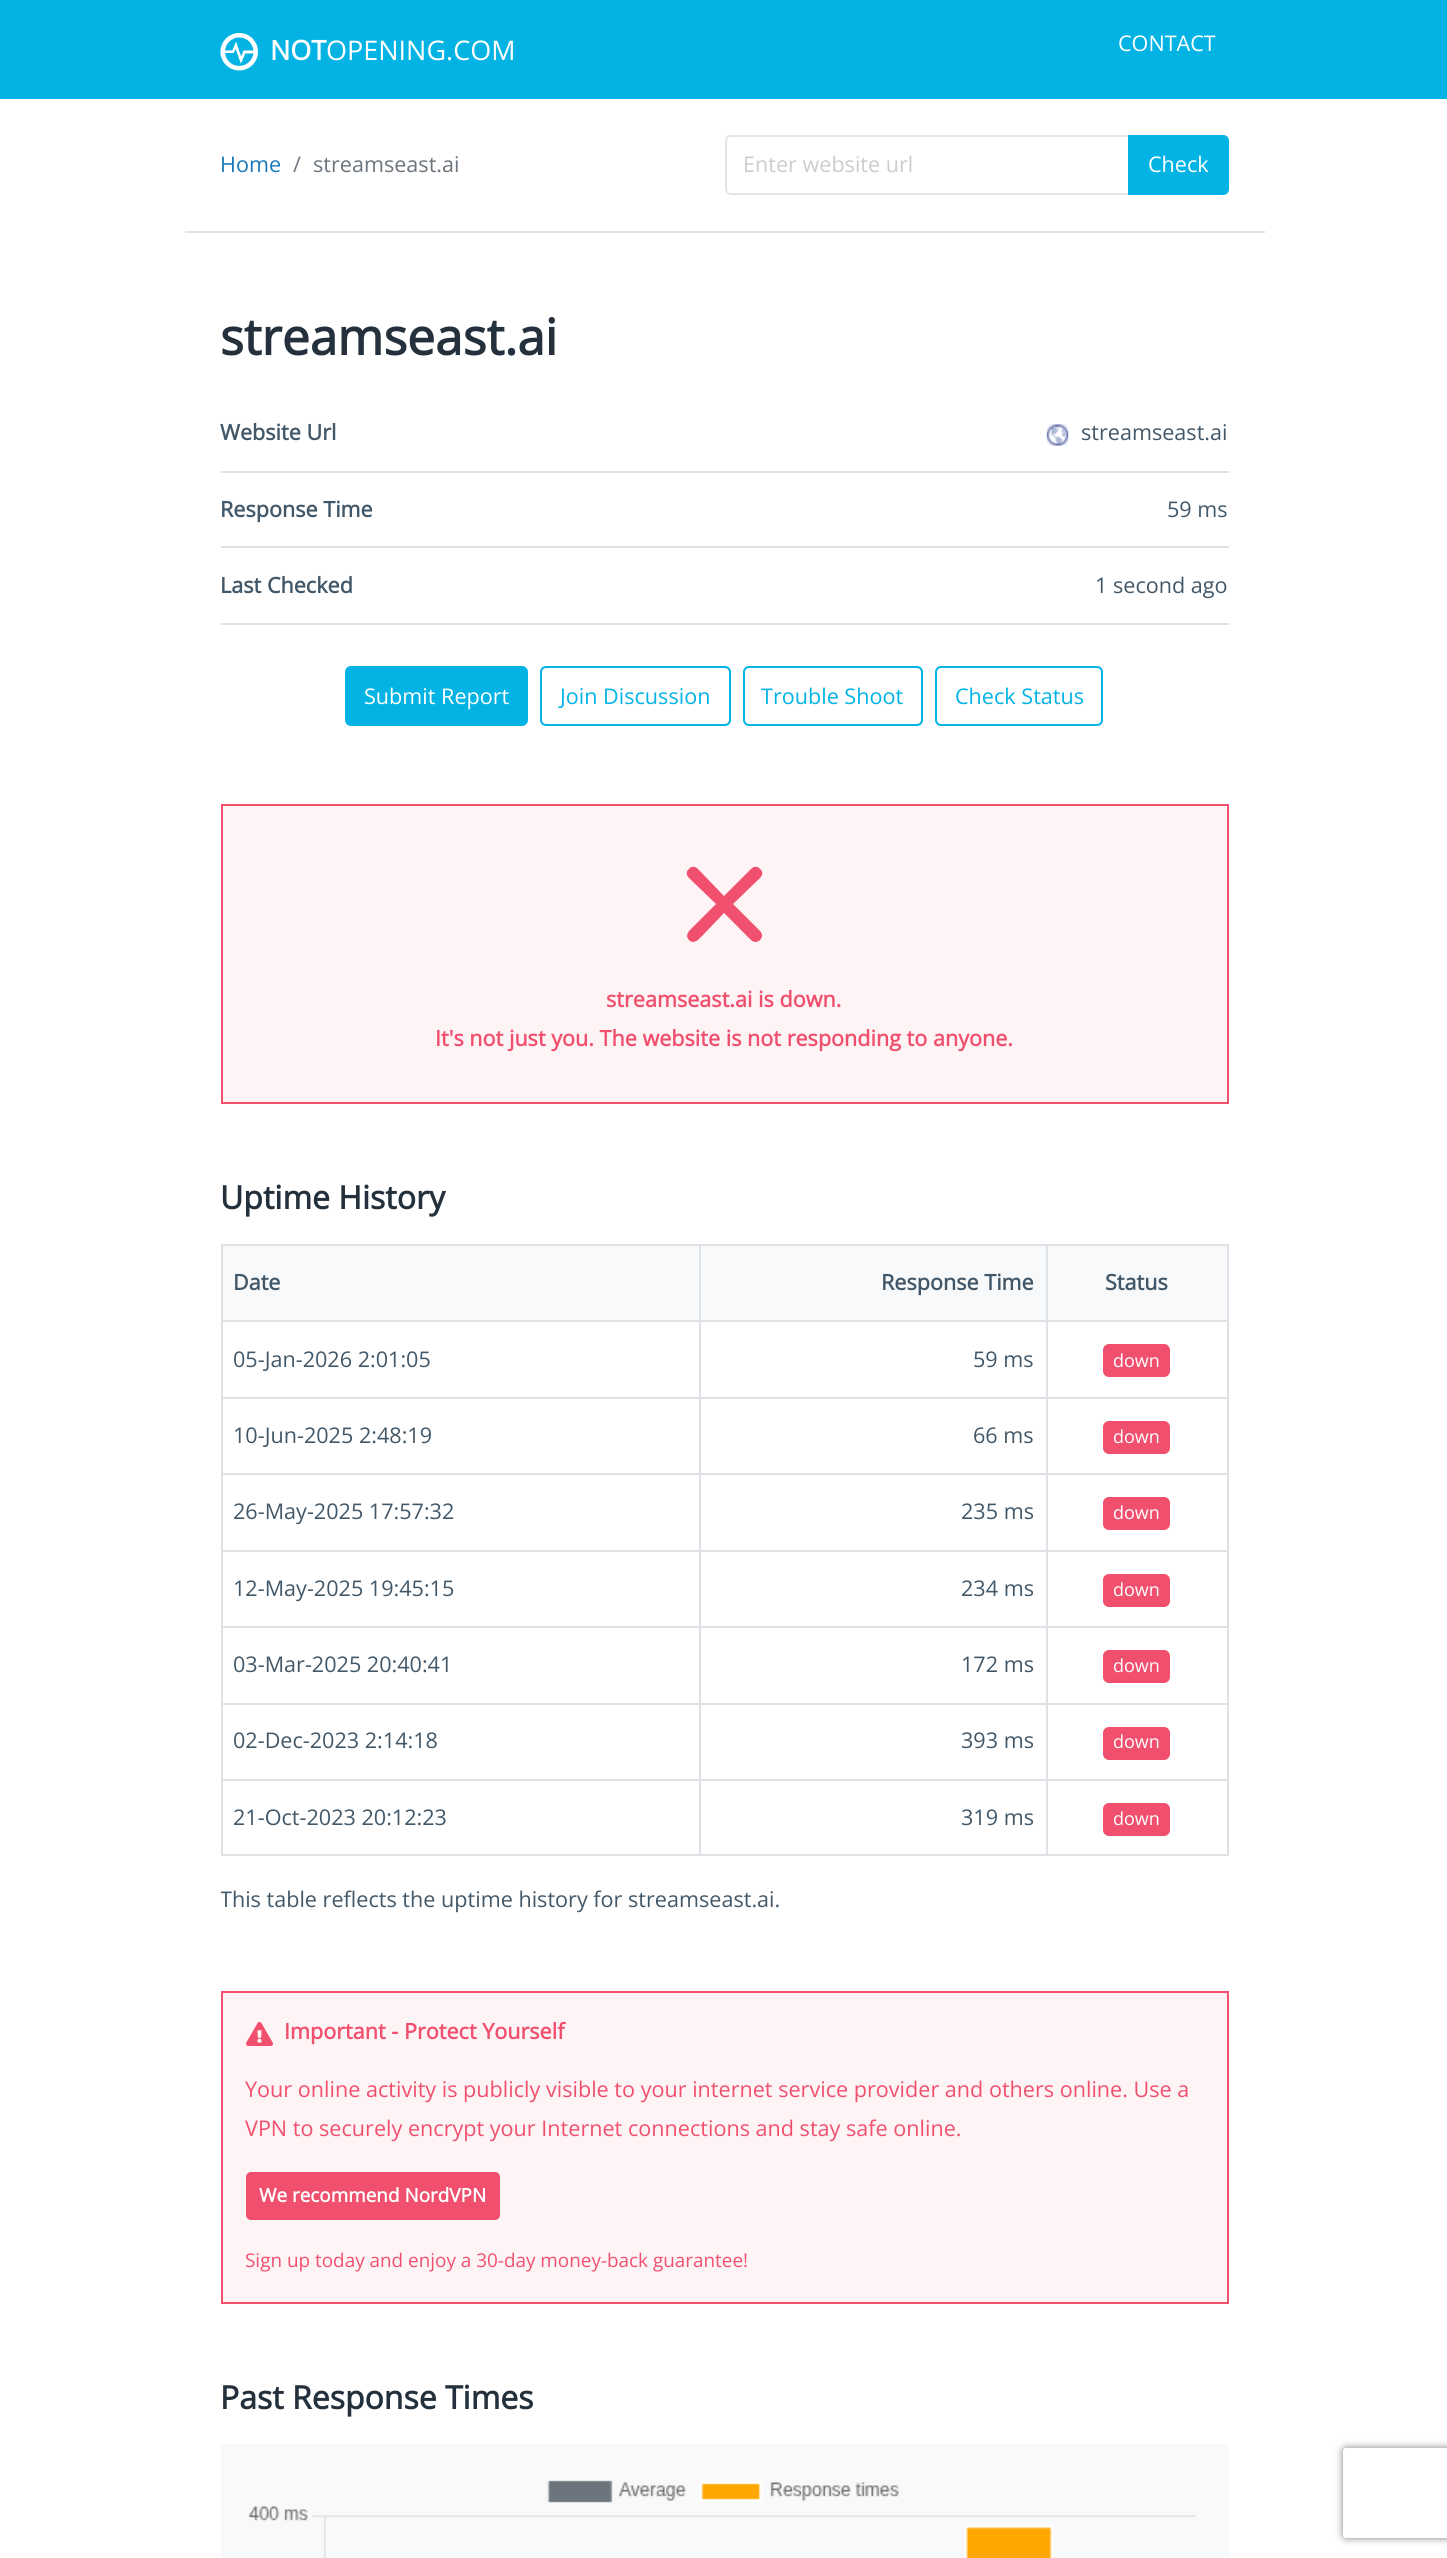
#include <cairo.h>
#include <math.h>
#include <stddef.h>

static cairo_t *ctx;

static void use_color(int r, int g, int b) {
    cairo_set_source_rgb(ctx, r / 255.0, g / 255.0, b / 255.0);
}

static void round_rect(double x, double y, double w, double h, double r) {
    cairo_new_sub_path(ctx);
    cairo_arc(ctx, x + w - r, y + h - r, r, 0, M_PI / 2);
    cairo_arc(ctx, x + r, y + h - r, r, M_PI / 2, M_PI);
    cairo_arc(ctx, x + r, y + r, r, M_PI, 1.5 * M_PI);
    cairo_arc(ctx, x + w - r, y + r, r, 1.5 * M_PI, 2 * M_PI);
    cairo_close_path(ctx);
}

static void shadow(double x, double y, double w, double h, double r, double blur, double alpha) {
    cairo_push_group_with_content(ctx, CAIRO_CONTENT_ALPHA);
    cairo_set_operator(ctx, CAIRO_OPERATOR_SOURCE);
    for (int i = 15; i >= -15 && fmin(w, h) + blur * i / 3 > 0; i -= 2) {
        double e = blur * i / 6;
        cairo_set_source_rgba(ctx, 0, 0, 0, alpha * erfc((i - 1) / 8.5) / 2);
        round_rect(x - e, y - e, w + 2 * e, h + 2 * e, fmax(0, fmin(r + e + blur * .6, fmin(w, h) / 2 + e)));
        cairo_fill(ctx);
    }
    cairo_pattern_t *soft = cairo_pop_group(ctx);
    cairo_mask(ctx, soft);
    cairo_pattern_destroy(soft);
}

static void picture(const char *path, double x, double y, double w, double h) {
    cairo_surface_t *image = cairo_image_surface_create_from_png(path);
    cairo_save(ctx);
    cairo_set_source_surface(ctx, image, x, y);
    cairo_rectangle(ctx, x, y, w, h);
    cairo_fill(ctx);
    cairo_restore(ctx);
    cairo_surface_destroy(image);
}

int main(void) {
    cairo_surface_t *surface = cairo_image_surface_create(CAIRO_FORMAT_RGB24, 1447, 2558);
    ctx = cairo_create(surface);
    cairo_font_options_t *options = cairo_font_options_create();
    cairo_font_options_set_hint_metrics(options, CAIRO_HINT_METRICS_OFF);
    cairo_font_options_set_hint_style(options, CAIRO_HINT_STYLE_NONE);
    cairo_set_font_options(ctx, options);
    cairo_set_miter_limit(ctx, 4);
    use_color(255, 255, 255);
    cairo_paint(ctx);
    use_color(2, 179, 228);
    cairo_rectangle(ctx, 0, 0, 1447, 99);
    cairo_fill(ctx);
    picture("img1.png", 220, 33, 38, 38);
    cairo_select_font_face(ctx, "Open Sans", CAIRO_FONT_SLANT_NORMAL, CAIRO_FONT_WEIGHT_BOLD);
    cairo_set_font_size(ctx, 27);
    use_color(255, 255, 255);
    cairo_move_to(ctx, 270, 60);
    cairo_show_text(ctx, "NOT");
    cairo_select_font_face(ctx, "Open Sans", CAIRO_FONT_SLANT_NORMAL, CAIRO_FONT_WEIGHT_NORMAL);
    cairo_move_to(ctx, 326, 60);
    cairo_show_text(ctx, "OPENING.COM");
    cairo_set_font_size(ctx, 21.6);
    cairo_move_to(ctx, 1118, 51);
    cairo_show_text(ctx, "CONTACT");
    use_color(222, 226, 230);
    cairo_rectangle(ctx, 185, 231, 1080, 2);
    cairo_fill(ctx);
    use_color(23, 121, 186);
    cairo_move_to(ctx, 220, 172);
    cairo_show_text(ctx, "Home");
    use_color(108, 117, 125);
    cairo_move_to(ctx, 293, 172);
    cairo_show_text(ctx, "/");
    cairo_move_to(ctx, 313, 172);
    cairo_show_text(ctx, "streamseast.ai");
    cairo_new_path(ctx);
    cairo_move_to(ctx, 731, 136);
    cairo_line_to(ctx, 1129, 136);
    cairo_line_to(ctx, 1129, 194);
    cairo_line_to(ctx, 731, 194);
    cairo_curve_to(ctx, 728, 194, 726, 192, 726, 189);
    cairo_line_to(ctx, 726, 141);
    cairo_curve_to(ctx, 726, 138, 728, 136, 731, 136);
    cairo_close_path(ctx);
    use_color(229, 229, 229);
    cairo_stroke(ctx);
    use_color(204, 204, 204);
    cairo_move_to(ctx, 743, 172);
    cairo_show_text(ctx, "Enter website url");
    use_color(2, 179, 228);
    cairo_new_path(ctx);
    cairo_move_to(ctx, 1129, 136);
    cairo_line_to(ctx, 1223, 136);
    cairo_curve_to(ctx, 1226, 136, 1228, 138, 1228, 141);
    cairo_line_to(ctx, 1228, 189);
    cairo_curve_to(ctx, 1228, 192, 1226, 194, 1223, 194);
    cairo_line_to(ctx, 1129, 194);
    cairo_close_path(ctx);
    cairo_fill_preserve(ctx);
    cairo_stroke(ctx);
    use_color(255, 255, 255);
    cairo_move_to(ctx, 1148, 172);
    cairo_show_text(ctx, "Check");
    cairo_select_font_face(ctx, "Open Sans", CAIRO_FONT_SLANT_NORMAL, CAIRO_FONT_WEIGHT_BOLD);
    cairo_set_font_size(ctx, 49.75);
    use_color(36, 49, 60);
    cairo_move_to(ctx, 220, 355);
    cairo_show_text(ctx, "streamseast.ai");
    use_color(222, 226, 230);
    cairo_rectangle(ctx, 221, 471, 1008, 2);
    cairo_fill(ctx);
    cairo_set_font_size(ctx, 21.6);
    use_color(66, 88, 105);
    cairo_move_to(ctx, 220, 440);
    cairo_show_text(ctx, "Website Url");
    picture("img2.png", 1046, 424, 23, 22);
    cairo_select_font_face(ctx, "Open Sans", CAIRO_FONT_SLANT_NORMAL, CAIRO_FONT_WEIGHT_NORMAL);
    cairo_move_to(ctx, 1081, 440);
    cairo_show_text(ctx, "streamseast.ai");
    use_color(222, 226, 230);
    cairo_rectangle(ctx, 221, 546, 1008, 2);
    cairo_fill(ctx);
    cairo_select_font_face(ctx, "Open Sans", CAIRO_FONT_SLANT_NORMAL, CAIRO_FONT_WEIGHT_BOLD);
    use_color(66, 88, 105);
    cairo_move_to(ctx, 220, 517);
    cairo_show_text(ctx, "Response Time");
    cairo_select_font_face(ctx, "Open Sans", CAIRO_FONT_SLANT_NORMAL, CAIRO_FONT_WEIGHT_NORMAL);
    cairo_move_to(ctx, 1167, 517);
    cairo_show_text(ctx, "59 ms");
    use_color(222, 226, 230);
    cairo_rectangle(ctx, 221, 623, 1008, 2);
    cairo_fill(ctx);
    cairo_select_font_face(ctx, "Open Sans", CAIRO_FONT_SLANT_NORMAL, CAIRO_FONT_WEIGHT_BOLD);
    use_color(66, 88, 105);
    cairo_move_to(ctx, 220, 593);
    cairo_show_text(ctx, "Last Checked");
    cairo_select_font_face(ctx, "Open Sans", CAIRO_FONT_SLANT_NORMAL, CAIRO_FONT_WEIGHT_NORMAL);
    cairo_move_to(ctx, 1095, 593);
    cairo_show_text(ctx, "1 second ago");
    use_color(2, 179, 228);
    round_rect(346, 667, 181, 58, 5);
    cairo_fill_preserve(ctx);
    cairo_stroke(ctx);
    use_color(255, 255, 255);
    cairo_move_to(ctx, 364, 704);
    cairo_show_text(ctx, "Submit Report");
    round_rect(541, 667, 189, 58, 5);
    use_color(2, 179, 228);
    cairo_stroke(ctx);
    cairo_move_to(ctx, 560, 704);
    cairo_show_text(ctx, "Join Discussion");
    round_rect(744, 667, 178, 58, 5);
    cairo_stroke(ctx);
    cairo_move_to(ctx, 761, 704);
    cairo_show_text(ctx, "Trouble Shoot");
    round_rect(936, 667, 166, 58, 5);
    cairo_stroke(ctx);
    cairo_move_to(ctx, 955, 704);
    cairo_show_text(ctx, "Check Status");
    use_color(254, 244, 246);
    cairo_rectangle(ctx, 222, 805, 1006, 298);
    cairo_fill_preserve(ctx);
    use_color(240, 80, 110);
    cairo_stroke(ctx);
    cairo_new_path(ctx);
    cairo_move_to(ctx, 733, 904);
    cairo_line_to(ctx, 760, 878);
    cairo_curve_to(ctx, 763, 875, 763, 871, 760, 869);
    cairo_curve_to(ctx, 758, 866, 754, 866, 751, 869);
    cairo_line_to(ctx, 724, 896);
    cairo_line_to(ctx, 698, 869);
    cairo_curve_to(ctx, 695, 866, 691, 866, 689, 869);
    cairo_curve_to(ctx, 686, 871, 686, 875, 689, 878);
    cairo_line_to(ctx, 716, 904);
    cairo_line_to(ctx, 693, 927);
    cairo_curve_to(ctx, 690, 930, 684, 935, 689, 940);
    cairo_curve_to(ctx, 694, 945, 699, 939, 702, 936);
    cairo_line_to(ctx, 724, 913);
    cairo_line_to(ctx, 751, 940);
    cairo_curve_to(ctx, 757, 946, 766, 937, 760, 931);
    cairo_close_path(ctx);
    cairo_fill(ctx);
    cairo_select_font_face(ctx, "Open Sans", CAIRO_FONT_SLANT_NORMAL, CAIRO_FONT_WEIGHT_BOLD);
    cairo_move_to(ctx, 606, 1007);
    cairo_show_text(ctx, "streamseast.ai is down.");
    cairo_move_to(ctx, 435, 1046);
    cairo_show_text(ctx, "It's not just you. The website is not responding to anyone.");
    cairo_set_font_size(ctx, 32);
    use_color(36, 49, 60);
    cairo_move_to(ctx, 220, 1209);
    cairo_show_text(ctx, "Uptime History");
    use_color(248, 249, 250);
    cairo_rectangle(ctx, 223, 1246, 1004, 74);
    cairo_fill(ctx);
    use_color(222, 226, 230);
    cairo_rectangle(ctx, 221, 1244, 1008, 2);
    cairo_fill(ctx);
    cairo_set_font_size(ctx, 21.6);
    use_color(66, 88, 105);
    cairo_move_to(ctx, 233, 1290);
    cairo_show_text(ctx, "Date");
    cairo_move_to(ctx, 881, 1290);
    cairo_show_text(ctx, "Response Time");
    cairo_move_to(ctx, 1105, 1290);
    cairo_show_text(ctx, "Status");
    use_color(222, 226, 230);
    cairo_rectangle(ctx, 221, 1320, 1008, 2);
    cairo_fill(ctx);
    cairo_select_font_face(ctx, "Open Sans", CAIRO_FONT_SLANT_NORMAL, CAIRO_FONT_WEIGHT_NORMAL);
    use_color(66, 88, 105);
    cairo_move_to(ctx, 233, 1367);
    cairo_show_text(ctx, "05-Jan-2026 2:01:05");
    cairo_move_to(ctx, 973, 1367);
    cairo_show_text(ctx, "59 ms");
    use_color(240, 80, 110);
    round_rect(1103, 1344, 67, 33, 6);
    cairo_fill(ctx);
    cairo_set_font_size(ctx, 18);
    use_color(255, 255, 255);
    cairo_move_to(ctx, 1113, 1367);
    cairo_show_text(ctx, "down");
    use_color(222, 226, 230);
    cairo_rectangle(ctx, 221, 1397, 1008, 2);
    cairo_fill(ctx);
    cairo_set_font_size(ctx, 21.6);
    use_color(66, 88, 105);
    cairo_move_to(ctx, 233, 1443);
    cairo_show_text(ctx, "10-Jun-2025 2:48:19");
    cairo_move_to(ctx, 973, 1443);
    cairo_show_text(ctx, "66 ms");
    use_color(240, 80, 110);
    round_rect(1103, 1421, 67, 33, 6);
    cairo_fill(ctx);
    cairo_set_font_size(ctx, 18);
    use_color(255, 255, 255);
    cairo_move_to(ctx, 1113, 1443);
    cairo_show_text(ctx, "down");
    use_color(222, 226, 230);
    cairo_rectangle(ctx, 221, 1473, 1008, 2);
    cairo_fill(ctx);
    cairo_set_font_size(ctx, 21.6);
    use_color(66, 88, 105);
    cairo_move_to(ctx, 233, 1519);
    cairo_show_text(ctx, "26-May-2025 17:57:32");
    cairo_move_to(ctx, 961, 1519);
    cairo_show_text(ctx, "235 ms");
    use_color(240, 80, 110);
    round_rect(1103, 1497, 67, 33, 6);
    cairo_fill(ctx);
    cairo_set_font_size(ctx, 18);
    use_color(255, 255, 255);
    cairo_move_to(ctx, 1113, 1519);
    cairo_show_text(ctx, "down");
    use_color(222, 226, 230);
    cairo_rectangle(ctx, 221, 1550, 1008, 2);
    cairo_fill(ctx);
    cairo_set_font_size(ctx, 21.6);
    use_color(66, 88, 105);
    cairo_move_to(ctx, 233, 1596);
    cairo_show_text(ctx, "12-May-2025 19:45:15");
    cairo_move_to(ctx, 961, 1596);
    cairo_show_text(ctx, "234 ms");
    use_color(240, 80, 110);
    round_rect(1103, 1574, 67, 33, 6);
    cairo_fill(ctx);
    cairo_set_font_size(ctx, 18);
    use_color(255, 255, 255);
    cairo_move_to(ctx, 1113, 1596);
    cairo_show_text(ctx, "down");
    use_color(222, 226, 230);
    cairo_rectangle(ctx, 221, 1626, 1008, 2);
    cairo_fill(ctx);
    cairo_set_font_size(ctx, 21.6);
    use_color(66, 88, 105);
    cairo_move_to(ctx, 233, 1672);
    cairo_show_text(ctx, "03-Mar-2025 20:40:41");
    cairo_move_to(ctx, 961, 1672);
    cairo_show_text(ctx, "172 ms");
    use_color(240, 80, 110);
    round_rect(1103, 1650, 67, 33, 6);
    cairo_fill(ctx);
    cairo_set_font_size(ctx, 18);
    use_color(255, 255, 255);
    cairo_move_to(ctx, 1113, 1672);
    cairo_show_text(ctx, "down");
    use_color(222, 226, 230);
    cairo_rectangle(ctx, 221, 1703, 1008, 2);
    cairo_fill(ctx);
    cairo_set_font_size(ctx, 21.6);
    use_color(66, 88, 105);
    cairo_move_to(ctx, 233, 1748);
    cairo_show_text(ctx, "02-Dec-2023 2:14:18");
    cairo_move_to(ctx, 961, 1748);
    cairo_show_text(ctx, "393 ms");
    use_color(240, 80, 110);
    round_rect(1103, 1727, 67, 33, 6);
    cairo_fill(ctx);
    cairo_set_font_size(ctx, 18);
    use_color(255, 255, 255);
    cairo_move_to(ctx, 1113, 1748);
    cairo_show_text(ctx, "down");
    use_color(222, 226, 230);
    cairo_rectangle(ctx, 221, 1779, 1008, 2);
    cairo_fill(ctx);
    cairo_rectangle(ctx, 221, 1854, 1008, 2);
    cairo_fill(ctx);
    cairo_rectangle(ctx, 221, 1244, 2, 612);
    cairo_fill(ctx);
    cairo_set_font_size(ctx, 21.6);
    use_color(66, 88, 105);
    cairo_move_to(ctx, 233, 1825);
    cairo_show_text(ctx, "21-Oct-2023 20:12:23");
    use_color(222, 226, 230);
    cairo_rectangle(ctx, 699, 1244, 2, 612);
    cairo_fill(ctx);
    use_color(66, 88, 105);
    cairo_move_to(ctx, 961, 1825);
    cairo_show_text(ctx, "319 ms");
    use_color(222, 226, 230);
    cairo_rectangle(ctx, 1227, 1244, 2, 612);
    cairo_fill(ctx);
    cairo_rectangle(ctx, 1046, 1244, 2, 612);
    cairo_fill(ctx);
    use_color(240, 80, 110);
    round_rect(1103, 1803, 67, 33, 6);
    cairo_fill(ctx);
    cairo_set_font_size(ctx, 18);
    use_color(255, 255, 255);
    cairo_move_to(ctx, 1113, 1825);
    cairo_show_text(ctx, "down");
    cairo_save(ctx);
    cairo_rectangle(ctx, 221, 1880, 1008, 39);
    cairo_clip(ctx);
    cairo_set_font_size(ctx, 21.6);
    use_color(66, 88, 105);
    cairo_move_to(ctx, 220, 1907);
    cairo_show_text(ctx, "This table reflects the uptime history for streamseast.ai.");
    cairo_restore(ctx);
    use_color(254, 244, 246);
    cairo_rectangle(ctx, 222, 1992, 1006, 311);
    cairo_fill_preserve(ctx);
    use_color(240, 80, 110);
    cairo_stroke(ctx);
    picture("img3.png", 246, 2022, 27, 24);
    cairo_select_font_face(ctx, "Open Sans", CAIRO_FONT_SLANT_NORMAL, CAIRO_FONT_WEIGHT_BOLD);
    cairo_set_font_size(ctx, 21.6);
    cairo_move_to(ctx, 284, 2039);
    cairo_show_text(ctx, "Important - Protect Yourself");
    cairo_select_font_face(ctx, "Open Sans", CAIRO_FONT_SLANT_NORMAL, CAIRO_FONT_WEIGHT_NORMAL);
    cairo_move_to(ctx, 245, 2097);
    cairo_show_text(ctx, "Your online activity is publicly visible to your internet service provider and others online. Use a");
    cairo_move_to(ctx, 245, 2136);
    cairo_show_text(ctx, "VPN to securely encrypt your Internet connections and stay safe online.");
    round_rect(247, 2173, 252, 46, 4);
    cairo_fill_preserve(ctx);
    cairo_stroke(ctx);
    cairo_select_font_face(ctx, "Open Sans", CAIRO_FONT_SLANT_NORMAL, CAIRO_FONT_WEIGHT_BOLD);
    cairo_set_font_size(ctx, 18.9);
    use_color(255, 255, 255);
    cairo_move_to(ctx, 259, 2202);
    cairo_show_text(ctx, "We recommend NordVPN");
    cairo_select_font_face(ctx, "Open Sans", CAIRO_FONT_SLANT_NORMAL, CAIRO_FONT_WEIGHT_NORMAL);
    use_color(240, 80, 110);
    cairo_move_to(ctx, 245, 2267);
    cairo_show_text(ctx, "Sign up today and enjoy a 30-day money-back guarantee!");
    cairo_select_font_face(ctx, "Open Sans", CAIRO_FONT_SLANT_NORMAL, CAIRO_FONT_WEIGHT_BOLD);
    cairo_set_font_size(ctx, 32);
    use_color(36, 49, 60);
    cairo_move_to(ctx, 220, 2409);
    cairo_show_text(ctx, "Past Response Times");
    use_color(248, 249, 250);
    cairo_rectangle(ctx, 221, 2444, 1008, 114);
    cairo_fill(ctx);
    picture("img4.png", 248, 2480, 948, 78);
    cairo_save(ctx);
    cairo_set_fill_rule(ctx, CAIRO_FILL_RULE_EVEN_ODD);
    cairo_new_path(ctx);
    cairo_move_to(ctx, 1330, 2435);
    cairo_line_to(ctx, 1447, 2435);
    cairo_line_to(ctx, 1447, 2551);
    cairo_line_to(ctx, 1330, 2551);
    cairo_close_path(ctx);
    cairo_move_to(ctx, 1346, 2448);
    cairo_line_to(ctx, 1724, 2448);
    cairo_curve_to(ctx, 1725.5, 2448, 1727, 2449.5, 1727, 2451);
    cairo_line_to(ctx, 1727, 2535);
    cairo_curve_to(ctx, 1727, 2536.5, 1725.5, 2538, 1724, 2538);
    cairo_line_to(ctx, 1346, 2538);
    cairo_curve_to(ctx, 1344.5, 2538, 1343, 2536.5, 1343, 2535);
    cairo_line_to(ctx, 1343, 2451);
    cairo_curve_to(ctx, 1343, 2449.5, 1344.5, 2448, 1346, 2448);
    cairo_close_path(ctx);
    cairo_clip(ctx);
    use_color(128, 128, 128);
    shadow(1343, 2448, 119, 90, 3, 4, 1);
    cairo_restore(ctx);
    cairo_surface_write_to_png(surface, "result.png");
    cairo_font_options_destroy(options);
    cairo_destroy(ctx);
    cairo_surface_destroy(surface);
    return 0;
}
